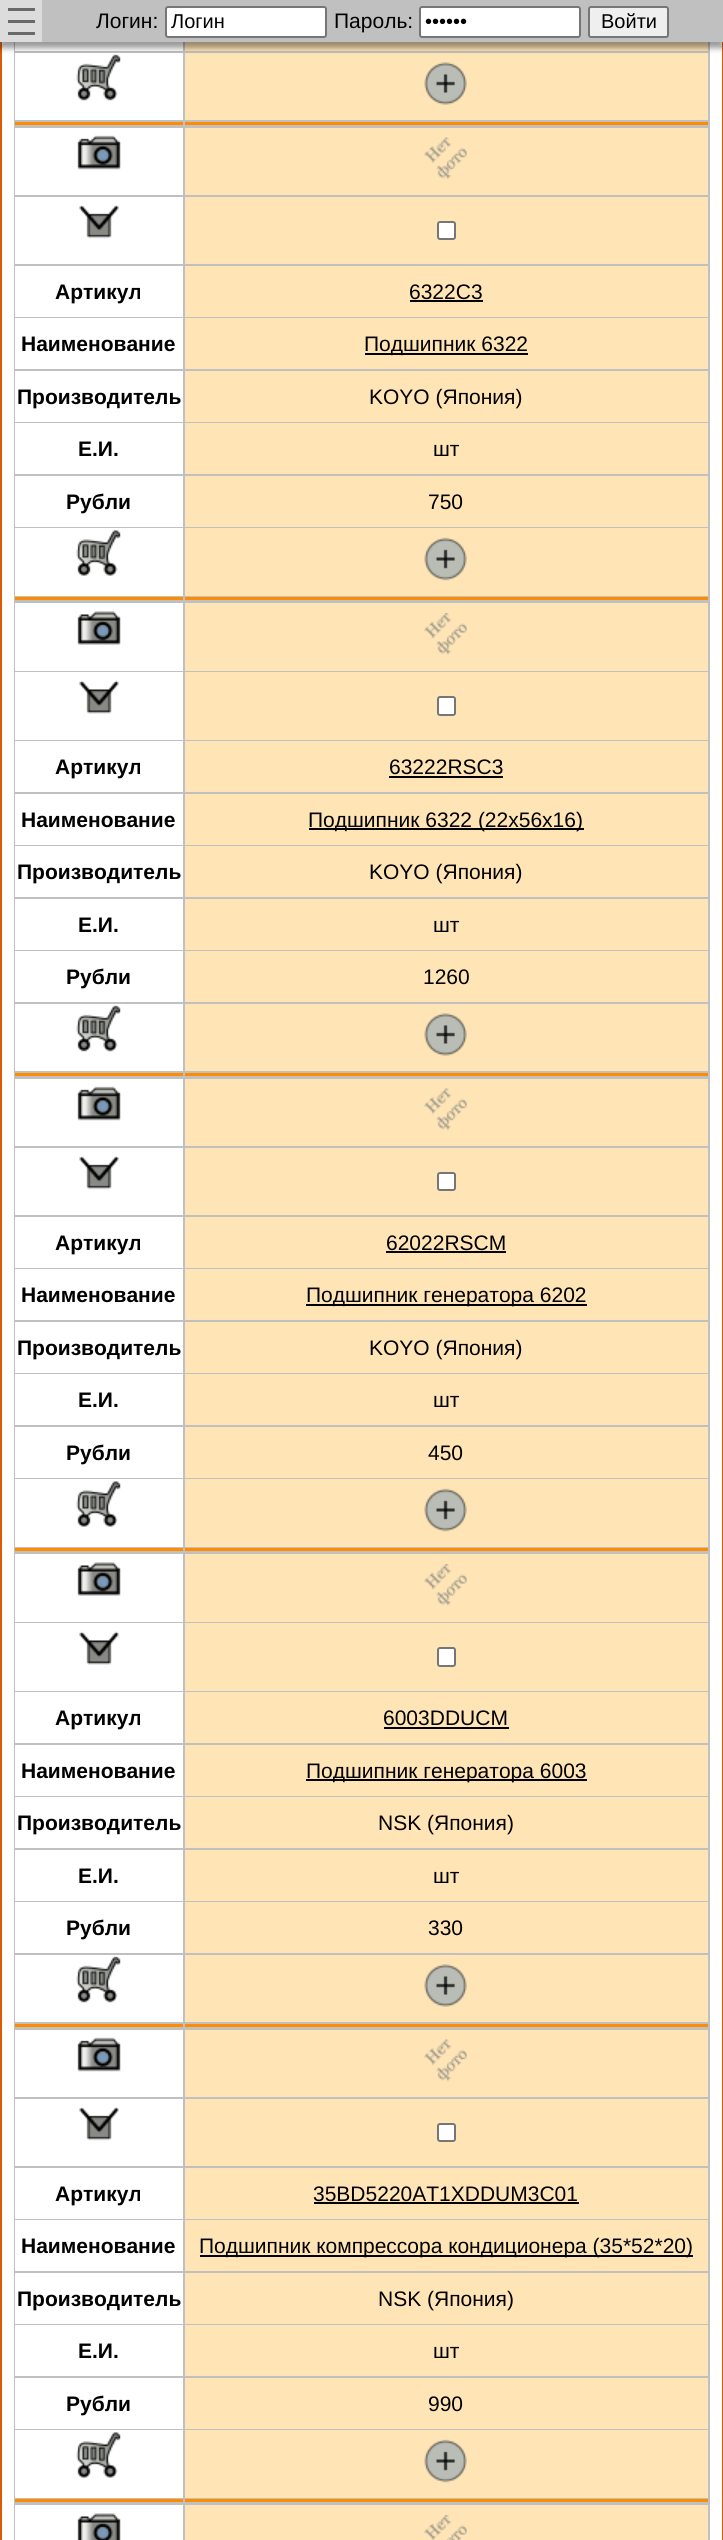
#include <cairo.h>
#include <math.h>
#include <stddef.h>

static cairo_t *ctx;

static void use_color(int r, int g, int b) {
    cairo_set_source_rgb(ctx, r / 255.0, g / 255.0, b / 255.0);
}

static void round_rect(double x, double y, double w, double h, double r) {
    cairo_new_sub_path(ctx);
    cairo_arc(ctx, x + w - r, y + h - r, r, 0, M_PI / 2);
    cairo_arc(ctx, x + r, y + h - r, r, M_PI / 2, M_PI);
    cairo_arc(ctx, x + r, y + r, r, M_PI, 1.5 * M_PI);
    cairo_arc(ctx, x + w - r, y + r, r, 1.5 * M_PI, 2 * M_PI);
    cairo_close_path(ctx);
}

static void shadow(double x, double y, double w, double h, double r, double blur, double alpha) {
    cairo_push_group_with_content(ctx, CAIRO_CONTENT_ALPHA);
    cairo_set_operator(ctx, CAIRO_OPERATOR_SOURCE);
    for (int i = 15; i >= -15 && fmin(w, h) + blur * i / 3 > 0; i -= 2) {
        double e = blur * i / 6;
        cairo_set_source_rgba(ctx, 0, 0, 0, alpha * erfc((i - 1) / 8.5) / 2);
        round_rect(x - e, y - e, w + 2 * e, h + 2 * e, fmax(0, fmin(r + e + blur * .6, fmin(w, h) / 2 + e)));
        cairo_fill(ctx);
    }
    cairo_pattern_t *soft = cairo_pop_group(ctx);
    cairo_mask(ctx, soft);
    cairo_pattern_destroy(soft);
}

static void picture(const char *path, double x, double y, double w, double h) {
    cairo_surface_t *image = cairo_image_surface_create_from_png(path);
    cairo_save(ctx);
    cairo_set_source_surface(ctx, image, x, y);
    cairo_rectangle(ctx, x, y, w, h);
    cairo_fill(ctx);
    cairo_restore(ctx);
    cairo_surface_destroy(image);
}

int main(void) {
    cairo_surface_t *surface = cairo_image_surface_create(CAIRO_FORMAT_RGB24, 723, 2540);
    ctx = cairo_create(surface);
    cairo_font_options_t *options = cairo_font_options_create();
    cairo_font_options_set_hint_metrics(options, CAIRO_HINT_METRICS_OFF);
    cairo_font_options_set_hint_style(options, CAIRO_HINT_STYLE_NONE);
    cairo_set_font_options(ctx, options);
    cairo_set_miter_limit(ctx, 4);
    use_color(255, 255, 255);
    cairo_paint(ctx);
    use_color(217, 90, 7);
    cairo_rectangle(ctx, 722, 42, 1, 2498);
    cairo_fill(ctx);
    cairo_rectangle(ctx, 0, 42, 2, 2498);
    cairo_fill(ctx);
    use_color(192, 192, 192);
    cairo_rectangle(ctx, 14, 42, 696, 2498);
    cairo_fill(ctx);
    use_color(255, 255, 255);
    cairo_rectangle(ctx, 15, 42, 168, 9);
    cairo_fill(ctx);
    use_color(255, 228, 181);
    cairo_rectangle(ctx, 185, 42, 523, 9);
    cairo_fill(ctx);
    use_color(255, 255, 255);
    cairo_rectangle(ctx, 15, 53, 168, 67);
    cairo_fill(ctx);
    picture("img1.png", 76, 54, 45, 47);
    use_color(255, 228, 181);
    cairo_rectangle(ctx, 185, 53, 523, 67);
    cairo_fill(ctx);
    use_color(0, 0, 0);
    shadow(0, 6, 723, 42, 0, 3, 0.4);
    use_color(192, 192, 192);
    cairo_rectangle(ctx, 42, 0, 681, 42);
    cairo_fill(ctx);
    use_color(220, 220, 220);
    cairo_rectangle(ctx, 0, 0, 42, 42);
    cairo_fill(ctx);
    use_color(105, 105, 105);
    cairo_rectangle(ctx, 8, 20, 27, 3);
    cairo_fill(ctx);
    cairo_rectangle(ctx, 8, 8, 27, 3);
    cairo_fill(ctx);
    cairo_rectangle(ctx, 8, 32, 27, 3);
    cairo_fill(ctx);
    cairo_select_font_face(ctx, "Liberation Sans", CAIRO_FONT_SLANT_NORMAL, CAIRO_FONT_WEIGHT_NORMAL);
    cairo_set_font_size(ctx, 21);
    use_color(0, 0, 0);
    cairo_move_to(ctx, 96, 28);
    cairo_show_text(ctx, "Логин:");
    use_color(255, 255, 255);
    round_rect(166, 7, 160, 30, 2);
    cairo_fill_preserve(ctx);
    use_color(118, 118, 118);
    cairo_stroke(ctx);
    cairo_set_font_size(ctx, 20);
    use_color(0, 0, 0);
    cairo_move_to(ctx, 171, 28);
    cairo_show_text(ctx, "Логин");
    cairo_set_font_size(ctx, 21);
    cairo_move_to(ctx, 334, 28);
    cairo_show_text(ctx, "Пароль:");
    use_color(255, 255, 255);
    round_rect(420, 7, 160, 30, 2);
    cairo_fill_preserve(ctx);
    use_color(118, 118, 118);
    cairo_stroke(ctx);
    cairo_set_font_size(ctx, 20);
    use_color(0, 0, 0);
    cairo_move_to(ctx, 425, 28);
    cairo_show_text(ctx, "••••••");
    use_color(239, 239, 239);
    round_rect(589, 7, 79, 30, 2);
    cairo_fill_preserve(ctx);
    use_color(118, 118, 118);
    cairo_stroke(ctx);
    use_color(0, 0, 0);
    cairo_move_to(ctx, 601, 28);
    cairo_show_text(ctx, "Войти");
    picture("img2.png", 424, 62, 43, 43);
    use_color(255, 140, 0);
    cairo_rectangle(ctx, 15, 122, 168, 3);
    cairo_fill(ctx);
    cairo_rectangle(ctx, 185, 122, 523, 3);
    cairo_fill(ctx);
    use_color(255, 255, 255);
    cairo_rectangle(ctx, 15, 128, 168, 67);
    cairo_fill(ctx);
    picture("img3.png", 77, 135, 44, 35);
    use_color(255, 228, 181);
    cairo_rectangle(ctx, 185, 128, 523, 67);
    cairo_fill(ctx);
    picture("img4.png", 424, 137, 43, 43);
    use_color(255, 255, 255);
    cairo_rectangle(ctx, 15, 197, 168, 67);
    cairo_fill(ctx);
    picture("img5.png", 79, 205, 40, 34);
    use_color(255, 228, 181);
    cairo_rectangle(ctx, 185, 197, 523, 67);
    cairo_fill(ctx);
    use_color(255, 255, 255);
    round_rect(438, 222, 17, 17, 2);
    cairo_fill_preserve(ctx);
    use_color(118, 118, 118);
    cairo_stroke(ctx);
    use_color(255, 255, 255);
    cairo_rectangle(ctx, 15, 266, 168, 51);
    cairo_fill(ctx);
    cairo_select_font_face(ctx, "Liberation Sans", CAIRO_FONT_SLANT_NORMAL, CAIRO_FONT_WEIGHT_BOLD);
    cairo_set_font_size(ctx, 21);
    use_color(0, 0, 0);
    cairo_move_to(ctx, 55, 299);
    cairo_show_text(ctx, "Артикул");
    use_color(255, 228, 181);
    cairo_rectangle(ctx, 185, 266, 523, 51);
    cairo_fill(ctx);
    cairo_select_font_face(ctx, "Liberation Sans", CAIRO_FONT_SLANT_NORMAL, CAIRO_FONT_WEIGHT_NORMAL);
    use_color(0, 0, 0);
    cairo_move_to(ctx, 409, 299);
    cairo_show_text(ctx, "6322C3");
    cairo_rectangle(ctx, 410, 300, 73, 2);
    cairo_fill(ctx);
    use_color(255, 255, 255);
    cairo_rectangle(ctx, 15, 318, 168, 51);
    cairo_fill(ctx);
    cairo_select_font_face(ctx, "Liberation Sans", CAIRO_FONT_SLANT_NORMAL, CAIRO_FONT_WEIGHT_BOLD);
    use_color(0, 0, 0);
    cairo_move_to(ctx, 21, 351);
    cairo_show_text(ctx, "Наименование");
    use_color(255, 228, 181);
    cairo_rectangle(ctx, 185, 318, 523, 51);
    cairo_fill(ctx);
    use_color(0, 0, 0);
    cairo_rectangle(ctx, 365, 353, 163, 2);
    cairo_fill(ctx);
    cairo_select_font_face(ctx, "Liberation Sans", CAIRO_FONT_SLANT_NORMAL, CAIRO_FONT_WEIGHT_NORMAL);
    cairo_move_to(ctx, 364, 351);
    cairo_show_text(ctx, "Подшипник 6322");
    use_color(255, 255, 255);
    cairo_rectangle(ctx, 15, 371, 168, 51);
    cairo_fill(ctx);
    cairo_select_font_face(ctx, "Liberation Sans", CAIRO_FONT_SLANT_NORMAL, CAIRO_FONT_WEIGHT_BOLD);
    use_color(0, 0, 0);
    cairo_move_to(ctx, 17, 404);
    cairo_show_text(ctx, "Производитель");
    use_color(255, 228, 181);
    cairo_rectangle(ctx, 185, 371, 523, 51);
    cairo_fill(ctx);
    cairo_select_font_face(ctx, "Liberation Sans", CAIRO_FONT_SLANT_NORMAL, CAIRO_FONT_WEIGHT_NORMAL);
    use_color(0, 0, 0);
    cairo_move_to(ctx, 369, 404);
    cairo_show_text(ctx, "KOYO (Япония)");
    use_color(255, 255, 255);
    cairo_rectangle(ctx, 15, 423, 168, 51);
    cairo_fill(ctx);
    cairo_select_font_face(ctx, "Liberation Sans", CAIRO_FONT_SLANT_NORMAL, CAIRO_FONT_WEIGHT_BOLD);
    use_color(0, 0, 0);
    cairo_move_to(ctx, 78, 456);
    cairo_show_text(ctx, "Е.И.");
    use_color(255, 228, 181);
    cairo_rectangle(ctx, 185, 423, 523, 51);
    cairo_fill(ctx);
    cairo_select_font_face(ctx, "Liberation Sans", CAIRO_FONT_SLANT_NORMAL, CAIRO_FONT_WEIGHT_NORMAL);
    use_color(0, 0, 0);
    cairo_move_to(ctx, 433, 456);
    cairo_show_text(ctx, "шт");
    use_color(255, 255, 255);
    cairo_rectangle(ctx, 15, 476, 168, 51);
    cairo_fill(ctx);
    cairo_select_font_face(ctx, "Liberation Sans", CAIRO_FONT_SLANT_NORMAL, CAIRO_FONT_WEIGHT_BOLD);
    use_color(0, 0, 0);
    cairo_move_to(ctx, 66, 509);
    cairo_show_text(ctx, "Рубли");
    use_color(255, 228, 181);
    cairo_rectangle(ctx, 185, 476, 523, 51);
    cairo_fill(ctx);
    cairo_select_font_face(ctx, "Liberation Sans", CAIRO_FONT_SLANT_NORMAL, CAIRO_FONT_WEIGHT_NORMAL);
    use_color(0, 0, 0);
    cairo_move_to(ctx, 428, 509);
    cairo_show_text(ctx, "750");
    use_color(255, 255, 255);
    cairo_rectangle(ctx, 15, 528, 168, 68);
    cairo_fill(ctx);
    picture("img6.png", 76, 530, 45, 46);
    use_color(255, 228, 181);
    cairo_rectangle(ctx, 185, 528, 523, 68);
    cairo_fill(ctx);
    picture("img7.png", 424, 537, 43, 44);
    use_color(255, 140, 0);
    cairo_rectangle(ctx, 15, 597, 168, 3);
    cairo_fill(ctx);
    cairo_rectangle(ctx, 185, 597, 523, 3);
    cairo_fill(ctx);
    use_color(255, 255, 255);
    cairo_rectangle(ctx, 15, 603, 168, 68);
    cairo_fill(ctx);
    picture("img8.png", 77, 611, 44, 34);
    use_color(255, 228, 181);
    cairo_rectangle(ctx, 185, 603, 523, 68);
    cairo_fill(ctx);
    picture("img9.png", 424, 613, 43, 42);
    use_color(255, 255, 255);
    cairo_rectangle(ctx, 15, 672, 168, 68);
    cairo_fill(ctx);
    picture("img10.png", 79, 680, 40, 34);
    use_color(255, 228, 181);
    cairo_rectangle(ctx, 185, 672, 523, 68);
    cairo_fill(ctx);
    use_color(255, 255, 255);
    round_rect(438, 697, 17, 18, 2);
    cairo_fill_preserve(ctx);
    use_color(118, 118, 118);
    cairo_stroke(ctx);
    use_color(255, 255, 255);
    cairo_rectangle(ctx, 15, 741, 168, 51);
    cairo_fill(ctx);
    cairo_select_font_face(ctx, "Liberation Sans", CAIRO_FONT_SLANT_NORMAL, CAIRO_FONT_WEIGHT_BOLD);
    use_color(0, 0, 0);
    cairo_move_to(ctx, 55, 774);
    cairo_show_text(ctx, "Артикул");
    use_color(255, 228, 181);
    cairo_rectangle(ctx, 185, 741, 523, 51);
    cairo_fill(ctx);
    cairo_select_font_face(ctx, "Liberation Sans", CAIRO_FONT_SLANT_NORMAL, CAIRO_FONT_WEIGHT_NORMAL);
    use_color(0, 0, 0);
    cairo_move_to(ctx, 389, 774);
    cairo_show_text(ctx, "63222RSC3");
    cairo_rectangle(ctx, 389, 776, 114, 2);
    cairo_fill(ctx);
    use_color(255, 255, 255);
    cairo_rectangle(ctx, 15, 794, 168, 51);
    cairo_fill(ctx);
    cairo_select_font_face(ctx, "Liberation Sans", CAIRO_FONT_SLANT_NORMAL, CAIRO_FONT_WEIGHT_BOLD);
    use_color(0, 0, 0);
    cairo_move_to(ctx, 21, 827);
    cairo_show_text(ctx, "Наименование");
    use_color(255, 228, 181);
    cairo_rectangle(ctx, 185, 794, 523, 51);
    cairo_fill(ctx);
    use_color(0, 0, 0);
    cairo_rectangle(ctx, 309, 828, 275, 2);
    cairo_fill(ctx);
    cairo_select_font_face(ctx, "Liberation Sans", CAIRO_FONT_SLANT_NORMAL, CAIRO_FONT_WEIGHT_NORMAL);
    cairo_move_to(ctx, 308, 827);
    cairo_show_text(ctx, "Подшипник 6322 (22x56x16)");
    use_color(255, 255, 255);
    cairo_rectangle(ctx, 15, 846, 168, 51);
    cairo_fill(ctx);
    cairo_select_font_face(ctx, "Liberation Sans", CAIRO_FONT_SLANT_NORMAL, CAIRO_FONT_WEIGHT_BOLD);
    use_color(0, 0, 0);
    cairo_move_to(ctx, 17, 879);
    cairo_show_text(ctx, "Производитель");
    use_color(255, 228, 181);
    cairo_rectangle(ctx, 185, 846, 523, 51);
    cairo_fill(ctx);
    cairo_select_font_face(ctx, "Liberation Sans", CAIRO_FONT_SLANT_NORMAL, CAIRO_FONT_WEIGHT_NORMAL);
    use_color(0, 0, 0);
    cairo_move_to(ctx, 369, 879);
    cairo_show_text(ctx, "KOYO (Япония)");
    use_color(255, 255, 255);
    cairo_rectangle(ctx, 15, 899, 168, 51);
    cairo_fill(ctx);
    cairo_select_font_face(ctx, "Liberation Sans", CAIRO_FONT_SLANT_NORMAL, CAIRO_FONT_WEIGHT_BOLD);
    use_color(0, 0, 0);
    cairo_move_to(ctx, 78, 932);
    cairo_show_text(ctx, "Е.И.");
    use_color(255, 228, 181);
    cairo_rectangle(ctx, 185, 899, 523, 51);
    cairo_fill(ctx);
    cairo_select_font_face(ctx, "Liberation Sans", CAIRO_FONT_SLANT_NORMAL, CAIRO_FONT_WEIGHT_NORMAL);
    use_color(0, 0, 0);
    cairo_move_to(ctx, 433, 932);
    cairo_show_text(ctx, "шт");
    use_color(255, 255, 255);
    cairo_rectangle(ctx, 15, 951, 168, 51);
    cairo_fill(ctx);
    cairo_select_font_face(ctx, "Liberation Sans", CAIRO_FONT_SLANT_NORMAL, CAIRO_FONT_WEIGHT_BOLD);
    use_color(0, 0, 0);
    cairo_move_to(ctx, 66, 984);
    cairo_show_text(ctx, "Рубли");
    use_color(255, 228, 181);
    cairo_rectangle(ctx, 185, 951, 523, 51);
    cairo_fill(ctx);
    cairo_select_font_face(ctx, "Liberation Sans", CAIRO_FONT_SLANT_NORMAL, CAIRO_FONT_WEIGHT_NORMAL);
    use_color(0, 0, 0);
    cairo_move_to(ctx, 423, 984);
    cairo_show_text(ctx, "1260");
    use_color(255, 255, 255);
    cairo_rectangle(ctx, 15, 1004, 168, 67);
    cairo_fill(ctx);
    picture("img1.png", 76, 1005, 45, 47);
    use_color(255, 228, 181);
    cairo_rectangle(ctx, 185, 1004, 523, 67);
    cairo_fill(ctx);
    picture("img2.png", 424, 1013, 43, 43);
    use_color(255, 140, 0);
    cairo_rectangle(ctx, 15, 1073, 168, 3);
    cairo_fill(ctx);
    cairo_rectangle(ctx, 185, 1073, 523, 3);
    cairo_fill(ctx);
    use_color(255, 255, 255);
    cairo_rectangle(ctx, 15, 1079, 168, 67);
    cairo_fill(ctx);
    picture("img3.png", 77, 1086, 44, 35);
    use_color(255, 228, 181);
    cairo_rectangle(ctx, 185, 1079, 523, 67);
    cairo_fill(ctx);
    picture("img4.png", 424, 1088, 43, 43);
    use_color(255, 255, 255);
    cairo_rectangle(ctx, 15, 1148, 168, 67);
    cairo_fill(ctx);
    picture("img5.png", 79, 1156, 40, 34);
    use_color(255, 228, 181);
    cairo_rectangle(ctx, 185, 1148, 523, 67);
    cairo_fill(ctx);
    use_color(255, 255, 255);
    round_rect(438, 1173, 17, 17, 2);
    cairo_fill_preserve(ctx);
    use_color(118, 118, 118);
    cairo_stroke(ctx);
    use_color(255, 255, 255);
    cairo_rectangle(ctx, 15, 1217, 168, 51);
    cairo_fill(ctx);
    cairo_select_font_face(ctx, "Liberation Sans", CAIRO_FONT_SLANT_NORMAL, CAIRO_FONT_WEIGHT_BOLD);
    use_color(0, 0, 0);
    cairo_move_to(ctx, 55, 1250);
    cairo_show_text(ctx, "Артикул");
    use_color(255, 228, 181);
    cairo_rectangle(ctx, 185, 1217, 523, 51);
    cairo_fill(ctx);
    cairo_select_font_face(ctx, "Liberation Sans", CAIRO_FONT_SLANT_NORMAL, CAIRO_FONT_WEIGHT_NORMAL);
    use_color(0, 0, 0);
    cairo_move_to(ctx, 386, 1250);
    cairo_show_text(ctx, "62022RSCM");
    cairo_rectangle(ctx, 386, 1251, 120, 2);
    cairo_fill(ctx);
    use_color(255, 255, 255);
    cairo_rectangle(ctx, 15, 1269, 168, 51);
    cairo_fill(ctx);
    cairo_select_font_face(ctx, "Liberation Sans", CAIRO_FONT_SLANT_NORMAL, CAIRO_FONT_WEIGHT_BOLD);
    use_color(0, 0, 0);
    cairo_move_to(ctx, 21, 1302);
    cairo_show_text(ctx, "Наименование");
    use_color(255, 228, 181);
    cairo_rectangle(ctx, 185, 1269, 523, 51);
    cairo_fill(ctx);
    use_color(0, 0, 0);
    cairo_rectangle(ctx, 306, 1304, 281, 2);
    cairo_fill(ctx);
    cairo_select_font_face(ctx, "Liberation Sans", CAIRO_FONT_SLANT_NORMAL, CAIRO_FONT_WEIGHT_NORMAL);
    cairo_move_to(ctx, 306, 1302);
    cairo_show_text(ctx, "Подшипник генератора 6202");
    use_color(255, 255, 255);
    cairo_rectangle(ctx, 15, 1322, 168, 51);
    cairo_fill(ctx);
    cairo_select_font_face(ctx, "Liberation Sans", CAIRO_FONT_SLANT_NORMAL, CAIRO_FONT_WEIGHT_BOLD);
    use_color(0, 0, 0);
    cairo_move_to(ctx, 17, 1355);
    cairo_show_text(ctx, "Производитель");
    use_color(255, 228, 181);
    cairo_rectangle(ctx, 185, 1322, 523, 51);
    cairo_fill(ctx);
    cairo_select_font_face(ctx, "Liberation Sans", CAIRO_FONT_SLANT_NORMAL, CAIRO_FONT_WEIGHT_NORMAL);
    use_color(0, 0, 0);
    cairo_move_to(ctx, 369, 1355);
    cairo_show_text(ctx, "KOYO (Япония)");
    use_color(255, 255, 255);
    cairo_rectangle(ctx, 15, 1374, 168, 51);
    cairo_fill(ctx);
    cairo_select_font_face(ctx, "Liberation Sans", CAIRO_FONT_SLANT_NORMAL, CAIRO_FONT_WEIGHT_BOLD);
    use_color(0, 0, 0);
    cairo_move_to(ctx, 78, 1407);
    cairo_show_text(ctx, "Е.И.");
    use_color(255, 228, 181);
    cairo_rectangle(ctx, 185, 1374, 523, 51);
    cairo_fill(ctx);
    cairo_select_font_face(ctx, "Liberation Sans", CAIRO_FONT_SLANT_NORMAL, CAIRO_FONT_WEIGHT_NORMAL);
    use_color(0, 0, 0);
    cairo_move_to(ctx, 433, 1407);
    cairo_show_text(ctx, "шт");
    use_color(255, 255, 255);
    cairo_rectangle(ctx, 15, 1427, 168, 51);
    cairo_fill(ctx);
    cairo_select_font_face(ctx, "Liberation Sans", CAIRO_FONT_SLANT_NORMAL, CAIRO_FONT_WEIGHT_BOLD);
    use_color(0, 0, 0);
    cairo_move_to(ctx, 66, 1460);
    cairo_show_text(ctx, "Рубли");
    use_color(255, 228, 181);
    cairo_rectangle(ctx, 185, 1427, 523, 51);
    cairo_fill(ctx);
    cairo_select_font_face(ctx, "Liberation Sans", CAIRO_FONT_SLANT_NORMAL, CAIRO_FONT_WEIGHT_NORMAL);
    use_color(0, 0, 0);
    cairo_move_to(ctx, 428, 1460);
    cairo_show_text(ctx, "450");
    use_color(255, 255, 255);
    cairo_rectangle(ctx, 15, 1479, 168, 68);
    cairo_fill(ctx);
    picture("img6.png", 76, 1481, 45, 46);
    use_color(255, 228, 181);
    cairo_rectangle(ctx, 185, 1479, 523, 68);
    cairo_fill(ctx);
    picture("img7.png", 424, 1488, 43, 44);
    use_color(255, 140, 0);
    cairo_rectangle(ctx, 15, 1548, 168, 3);
    cairo_fill(ctx);
    cairo_rectangle(ctx, 185, 1548, 523, 3);
    cairo_fill(ctx);
    use_color(255, 255, 255);
    cairo_rectangle(ctx, 15, 1554, 168, 68);
    cairo_fill(ctx);
    picture("img8.png", 77, 1562, 44, 34);
    use_color(255, 228, 181);
    cairo_rectangle(ctx, 185, 1554, 523, 68);
    cairo_fill(ctx);
    picture("img9.png", 424, 1564, 43, 42);
    use_color(255, 255, 255);
    cairo_rectangle(ctx, 15, 1623, 168, 68);
    cairo_fill(ctx);
    picture("img10.png", 79, 1631, 40, 34);
    use_color(255, 228, 181);
    cairo_rectangle(ctx, 185, 1623, 523, 68);
    cairo_fill(ctx);
    use_color(255, 255, 255);
    round_rect(438, 1648, 17, 18, 2);
    cairo_fill_preserve(ctx);
    use_color(118, 118, 118);
    cairo_stroke(ctx);
    use_color(255, 255, 255);
    cairo_rectangle(ctx, 15, 1692, 168, 51);
    cairo_fill(ctx);
    cairo_select_font_face(ctx, "Liberation Sans", CAIRO_FONT_SLANT_NORMAL, CAIRO_FONT_WEIGHT_BOLD);
    use_color(0, 0, 0);
    cairo_move_to(ctx, 55, 1725);
    cairo_show_text(ctx, "Артикул");
    use_color(255, 228, 181);
    cairo_rectangle(ctx, 185, 1692, 523, 51);
    cairo_fill(ctx);
    cairo_select_font_face(ctx, "Liberation Sans", CAIRO_FONT_SLANT_NORMAL, CAIRO_FONT_WEIGHT_NORMAL);
    use_color(0, 0, 0);
    cairo_move_to(ctx, 383, 1725);
    cairo_show_text(ctx, "6003DDUCM");
    cairo_rectangle(ctx, 384, 1727, 125, 2);
    cairo_fill(ctx);
    use_color(255, 255, 255);
    cairo_rectangle(ctx, 15, 1745, 168, 51);
    cairo_fill(ctx);
    cairo_select_font_face(ctx, "Liberation Sans", CAIRO_FONT_SLANT_NORMAL, CAIRO_FONT_WEIGHT_BOLD);
    use_color(0, 0, 0);
    cairo_move_to(ctx, 21, 1778);
    cairo_show_text(ctx, "Наименование");
    use_color(255, 228, 181);
    cairo_rectangle(ctx, 185, 1745, 523, 51);
    cairo_fill(ctx);
    use_color(0, 0, 0);
    cairo_rectangle(ctx, 306, 1779, 281, 2);
    cairo_fill(ctx);
    cairo_select_font_face(ctx, "Liberation Sans", CAIRO_FONT_SLANT_NORMAL, CAIRO_FONT_WEIGHT_NORMAL);
    cairo_move_to(ctx, 306, 1778);
    cairo_show_text(ctx, "Подшипник генератора 6003");
    use_color(255, 255, 255);
    cairo_rectangle(ctx, 15, 1797, 168, 51);
    cairo_fill(ctx);
    cairo_select_font_face(ctx, "Liberation Sans", CAIRO_FONT_SLANT_NORMAL, CAIRO_FONT_WEIGHT_BOLD);
    use_color(0, 0, 0);
    cairo_move_to(ctx, 17, 1830);
    cairo_show_text(ctx, "Производитель");
    use_color(255, 228, 181);
    cairo_rectangle(ctx, 185, 1797, 523, 51);
    cairo_fill(ctx);
    cairo_select_font_face(ctx, "Liberation Sans", CAIRO_FONT_SLANT_NORMAL, CAIRO_FONT_WEIGHT_NORMAL);
    use_color(0, 0, 0);
    cairo_move_to(ctx, 378, 1830);
    cairo_show_text(ctx, "NSK (Япония)");
    use_color(255, 255, 255);
    cairo_rectangle(ctx, 15, 1850, 168, 51);
    cairo_fill(ctx);
    cairo_select_font_face(ctx, "Liberation Sans", CAIRO_FONT_SLANT_NORMAL, CAIRO_FONT_WEIGHT_BOLD);
    use_color(0, 0, 0);
    cairo_move_to(ctx, 78, 1883);
    cairo_show_text(ctx, "Е.И.");
    use_color(255, 228, 181);
    cairo_rectangle(ctx, 185, 1850, 523, 51);
    cairo_fill(ctx);
    cairo_select_font_face(ctx, "Liberation Sans", CAIRO_FONT_SLANT_NORMAL, CAIRO_FONT_WEIGHT_NORMAL);
    use_color(0, 0, 0);
    cairo_move_to(ctx, 433, 1883);
    cairo_show_text(ctx, "шт");
    use_color(255, 255, 255);
    cairo_rectangle(ctx, 15, 1902, 168, 51);
    cairo_fill(ctx);
    cairo_select_font_face(ctx, "Liberation Sans", CAIRO_FONT_SLANT_NORMAL, CAIRO_FONT_WEIGHT_BOLD);
    use_color(0, 0, 0);
    cairo_move_to(ctx, 66, 1935);
    cairo_show_text(ctx, "Рубли");
    use_color(255, 228, 181);
    cairo_rectangle(ctx, 185, 1902, 523, 51);
    cairo_fill(ctx);
    cairo_select_font_face(ctx, "Liberation Sans", CAIRO_FONT_SLANT_NORMAL, CAIRO_FONT_WEIGHT_NORMAL);
    use_color(0, 0, 0);
    cairo_move_to(ctx, 428, 1935);
    cairo_show_text(ctx, "330");
    use_color(255, 255, 255);
    cairo_rectangle(ctx, 15, 1955, 168, 67);
    cairo_fill(ctx);
    picture("img1.png", 76, 1956, 45, 47);
    use_color(255, 228, 181);
    cairo_rectangle(ctx, 185, 1955, 523, 67);
    cairo_fill(ctx);
    picture("img2.png", 424, 1964, 43, 43);
    use_color(255, 140, 0);
    cairo_rectangle(ctx, 15, 2024, 168, 3);
    cairo_fill(ctx);
    cairo_rectangle(ctx, 185, 2024, 523, 3);
    cairo_fill(ctx);
    use_color(255, 255, 255);
    cairo_rectangle(ctx, 15, 2030, 168, 67);
    cairo_fill(ctx);
    picture("img3.png", 77, 2037, 44, 35);
    use_color(255, 228, 181);
    cairo_rectangle(ctx, 185, 2030, 523, 67);
    cairo_fill(ctx);
    picture("img4.png", 424, 2039, 43, 43);
    use_color(255, 255, 255);
    cairo_rectangle(ctx, 15, 2099, 168, 67);
    cairo_fill(ctx);
    picture("img5.png", 79, 2107, 40, 34);
    use_color(255, 228, 181);
    cairo_rectangle(ctx, 185, 2099, 523, 67);
    cairo_fill(ctx);
    use_color(255, 255, 255);
    round_rect(438, 2124, 17, 17, 2);
    cairo_fill_preserve(ctx);
    use_color(118, 118, 118);
    cairo_stroke(ctx);
    use_color(255, 255, 255);
    cairo_rectangle(ctx, 15, 2168, 168, 51);
    cairo_fill(ctx);
    cairo_select_font_face(ctx, "Liberation Sans", CAIRO_FONT_SLANT_NORMAL, CAIRO_FONT_WEIGHT_BOLD);
    use_color(0, 0, 0);
    cairo_move_to(ctx, 55, 2201);
    cairo_show_text(ctx, "Артикул");
    use_color(255, 228, 181);
    cairo_rectangle(ctx, 185, 2168, 523, 51);
    cairo_fill(ctx);
    cairo_select_font_face(ctx, "Liberation Sans", CAIRO_FONT_SLANT_NORMAL, CAIRO_FONT_WEIGHT_NORMAL);
    use_color(0, 0, 0);
    cairo_move_to(ctx, 313, 2201);
    cairo_show_text(ctx, "35BD5220AT1XDDUM3C01");
    cairo_rectangle(ctx, 314, 2202, 265, 2);
    cairo_fill(ctx);
    use_color(255, 255, 255);
    cairo_rectangle(ctx, 15, 2220, 168, 51);
    cairo_fill(ctx);
    cairo_select_font_face(ctx, "Liberation Sans", CAIRO_FONT_SLANT_NORMAL, CAIRO_FONT_WEIGHT_BOLD);
    use_color(0, 0, 0);
    cairo_move_to(ctx, 21, 2253);
    cairo_show_text(ctx, "Наименование");
    use_color(255, 228, 181);
    cairo_rectangle(ctx, 185, 2220, 523, 51);
    cairo_fill(ctx);
    use_color(0, 0, 0);
    cairo_rectangle(ctx, 200, 2255, 493, 2);
    cairo_fill(ctx);
    cairo_select_font_face(ctx, "Liberation Sans", CAIRO_FONT_SLANT_NORMAL, CAIRO_FONT_WEIGHT_NORMAL);
    cairo_move_to(ctx, 199, 2253);
    cairo_show_text(ctx, "Подшипник компрессора кондиционера (35*52*20)");
    use_color(255, 255, 255);
    cairo_rectangle(ctx, 15, 2273, 168, 51);
    cairo_fill(ctx);
    cairo_select_font_face(ctx, "Liberation Sans", CAIRO_FONT_SLANT_NORMAL, CAIRO_FONT_WEIGHT_BOLD);
    use_color(0, 0, 0);
    cairo_move_to(ctx, 17, 2306);
    cairo_show_text(ctx, "Производитель");
    use_color(255, 228, 181);
    cairo_rectangle(ctx, 185, 2273, 523, 51);
    cairo_fill(ctx);
    cairo_select_font_face(ctx, "Liberation Sans", CAIRO_FONT_SLANT_NORMAL, CAIRO_FONT_WEIGHT_NORMAL);
    use_color(0, 0, 0);
    cairo_move_to(ctx, 378, 2306);
    cairo_show_text(ctx, "NSK (Япония)");
    use_color(255, 255, 255);
    cairo_rectangle(ctx, 15, 2325, 168, 51);
    cairo_fill(ctx);
    cairo_select_font_face(ctx, "Liberation Sans", CAIRO_FONT_SLANT_NORMAL, CAIRO_FONT_WEIGHT_BOLD);
    use_color(0, 0, 0);
    cairo_move_to(ctx, 78, 2358);
    cairo_show_text(ctx, "Е.И.");
    use_color(255, 228, 181);
    cairo_rectangle(ctx, 185, 2325, 523, 51);
    cairo_fill(ctx);
    cairo_select_font_face(ctx, "Liberation Sans", CAIRO_FONT_SLANT_NORMAL, CAIRO_FONT_WEIGHT_NORMAL);
    use_color(0, 0, 0);
    cairo_move_to(ctx, 433, 2358);
    cairo_show_text(ctx, "шт");
    use_color(255, 255, 255);
    cairo_rectangle(ctx, 15, 2378, 168, 51);
    cairo_fill(ctx);
    cairo_select_font_face(ctx, "Liberation Sans", CAIRO_FONT_SLANT_NORMAL, CAIRO_FONT_WEIGHT_BOLD);
    use_color(0, 0, 0);
    cairo_move_to(ctx, 66, 2411);
    cairo_show_text(ctx, "Рубли");
    use_color(255, 228, 181);
    cairo_rectangle(ctx, 185, 2378, 523, 51);
    cairo_fill(ctx);
    cairo_select_font_face(ctx, "Liberation Sans", CAIRO_FONT_SLANT_NORMAL, CAIRO_FONT_WEIGHT_NORMAL);
    use_color(0, 0, 0);
    cairo_move_to(ctx, 428, 2411);
    cairo_show_text(ctx, "990");
    use_color(255, 255, 255);
    cairo_rectangle(ctx, 15, 2430, 168, 68);
    cairo_fill(ctx);
    picture("img6.png", 76, 2432, 45, 46);
    use_color(255, 228, 181);
    cairo_rectangle(ctx, 185, 2430, 523, 68);
    cairo_fill(ctx);
    picture("img7.png", 424, 2439, 43, 44);
    use_color(255, 140, 0);
    cairo_rectangle(ctx, 15, 2499, 168, 3);
    cairo_fill(ctx);
    cairo_rectangle(ctx, 185, 2499, 523, 3);
    cairo_fill(ctx);
    use_color(255, 255, 255);
    cairo_rectangle(ctx, 15, 2505, 168, 35);
    cairo_fill(ctx);
    picture("img11.png", 77, 2513, 44, 27);
    use_color(255, 228, 181);
    cairo_rectangle(ctx, 185, 2505, 523, 35);
    cairo_fill(ctx);
    picture("img12.png", 424, 2515, 43, 25);
    cairo_surface_write_to_png(surface, "result.png");
    cairo_font_options_destroy(options);
    cairo_destroy(ctx);
    cairo_surface_destroy(surface);
    return 0;
}
